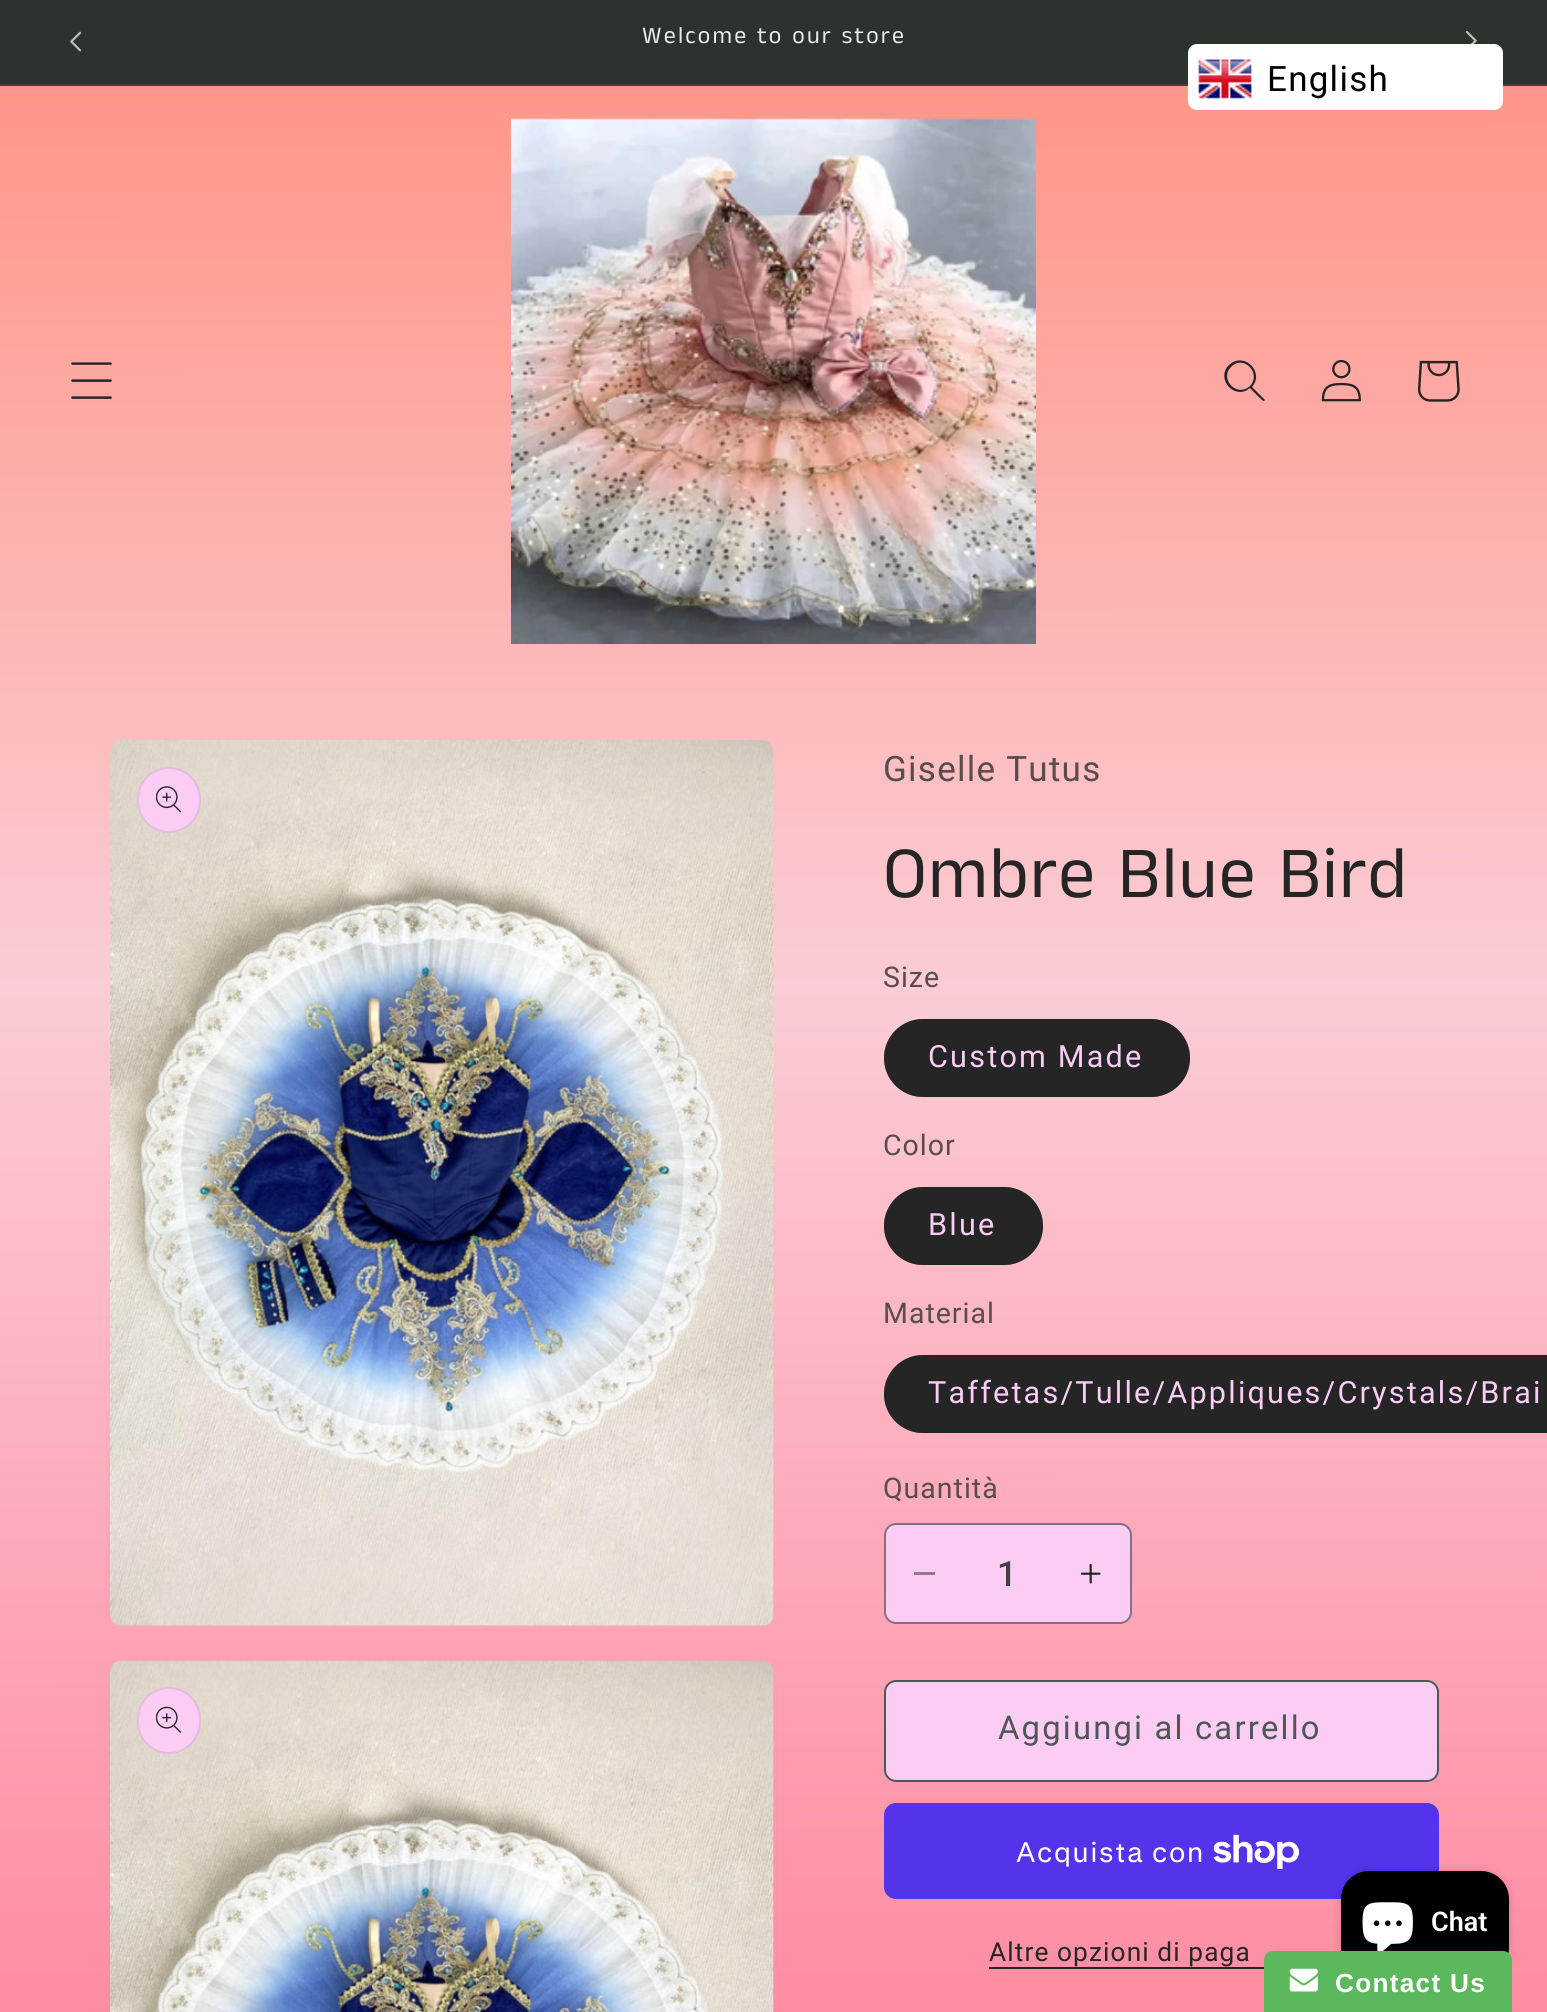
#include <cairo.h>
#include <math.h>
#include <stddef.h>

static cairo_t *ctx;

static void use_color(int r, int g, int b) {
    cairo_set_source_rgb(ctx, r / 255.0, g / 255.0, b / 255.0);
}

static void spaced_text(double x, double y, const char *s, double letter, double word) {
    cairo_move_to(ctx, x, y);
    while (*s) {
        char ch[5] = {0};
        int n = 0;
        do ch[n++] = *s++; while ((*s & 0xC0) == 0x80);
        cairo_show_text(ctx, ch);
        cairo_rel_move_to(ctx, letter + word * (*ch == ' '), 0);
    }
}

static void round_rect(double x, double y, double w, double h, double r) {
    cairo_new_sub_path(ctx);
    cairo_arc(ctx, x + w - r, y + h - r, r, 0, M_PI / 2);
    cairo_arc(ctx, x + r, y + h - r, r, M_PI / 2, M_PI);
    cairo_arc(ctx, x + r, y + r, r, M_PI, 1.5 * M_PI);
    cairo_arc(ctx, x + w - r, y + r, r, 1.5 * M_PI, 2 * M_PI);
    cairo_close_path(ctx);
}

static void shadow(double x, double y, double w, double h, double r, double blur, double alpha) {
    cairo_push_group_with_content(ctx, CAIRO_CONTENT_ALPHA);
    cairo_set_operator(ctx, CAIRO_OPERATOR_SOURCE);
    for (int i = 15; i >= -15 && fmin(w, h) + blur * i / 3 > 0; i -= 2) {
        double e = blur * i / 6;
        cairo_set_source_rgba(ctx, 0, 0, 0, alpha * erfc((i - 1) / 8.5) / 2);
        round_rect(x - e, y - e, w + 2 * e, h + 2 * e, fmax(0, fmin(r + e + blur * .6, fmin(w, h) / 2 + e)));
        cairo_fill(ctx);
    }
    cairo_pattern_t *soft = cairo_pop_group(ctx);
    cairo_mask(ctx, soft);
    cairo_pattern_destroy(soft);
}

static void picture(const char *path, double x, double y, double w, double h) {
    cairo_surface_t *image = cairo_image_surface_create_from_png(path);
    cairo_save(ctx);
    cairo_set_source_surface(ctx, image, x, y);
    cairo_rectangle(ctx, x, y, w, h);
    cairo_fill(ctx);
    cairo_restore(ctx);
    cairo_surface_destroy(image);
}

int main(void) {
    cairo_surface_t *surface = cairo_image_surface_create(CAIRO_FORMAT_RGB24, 1547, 2012);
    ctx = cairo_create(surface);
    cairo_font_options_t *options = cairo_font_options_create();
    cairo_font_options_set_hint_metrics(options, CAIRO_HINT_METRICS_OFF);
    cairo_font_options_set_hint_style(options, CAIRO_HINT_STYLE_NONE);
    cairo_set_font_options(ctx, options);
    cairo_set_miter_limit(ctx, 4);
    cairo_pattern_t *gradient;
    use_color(255, 255, 255);
    cairo_paint(ctx);
    gradient = cairo_pattern_create_linear(773, 0, 774, 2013);
    cairo_pattern_add_color_stop_rgba(gradient, 0, 1, 0.569, 0.506, 1);
    cairo_pattern_add_color_stop_rgba(gradient, 0.49, 0.984, 0.8, 0.835, 1);
    cairo_pattern_add_color_stop_rgba(gradient, 1, 1, 0.549, 0.635, 1);
    cairo_set_source(ctx, gradient);
    cairo_pattern_destroy(gradient);
    cairo_rectangle(ctx, 0, 86, 1547, 1926);
    cairo_fill(ctx);
    use_color(44, 51, 47);
    cairo_rectangle(ctx, 0, 0, 1547, 84);
    cairo_fill(ctx);
    use_color(60, 66, 62);
    cairo_rectangle(ctx, 0, 84, 1547, 2);
    cairo_fill(ctx);
    picture("img1.png", 70, 31, 12, 21);
    cairo_select_font_face(ctx, "Anek Tamil", CAIRO_FONT_SLANT_NORMAL, CAIRO_FONT_WEIGHT_NORMAL);
    cairo_set_font_size(ctx, 23.9);
    use_color(239, 236, 236);
    spaced_text(642, 43, "Welcome to our store", 2.2, 0);
    picture("img2.png", 1465, 31, 12, 13);
    use_color(255, 255, 255);
    round_rect(1188, 44, 315, 66, 9);
    cairo_fill(ctx);
    picture("img3.png", 1198, 59, 54, 40);
    cairo_select_font_face(ctx, "Roboto", CAIRO_FONT_SLANT_NORMAL, CAIRO_FONT_WEIGHT_NORMAL);
    cairo_set_font_size(ctx, 35);
    use_color(0, 0, 0);
    spaced_text(1267, 91, "English", 1.25, 0);
    picture("img4.png", 71, 362, 41, 37);
    picture("img5.png", 511, 118, 525, 526);
    use_color(37, 37, 37);
    cairo_set_fill_rule(ctx, CAIRO_FILL_RULE_EVEN_ODD);
    cairo_new_path(ctx);
    cairo_move_to(ctx, 1250, 386);
    cairo_curve_to(ctx, 1237, 398, 1219, 379, 1231, 367);
    cairo_curve_to(ctx, 1243, 354, 1262, 373, 1250, 386);
    cairo_close_path(ctx);
    cairo_move_to(ctx, 1250, 388);
    cairo_curve_to(ctx, 1235, 401, 1215, 379, 1229, 365);
    cairo_curve_to(ctx, 1244, 351, 1265, 372, 1252, 387);
    cairo_line_to(ctx, 1265, 400);
    cairo_line_to(ctx, 1264, 401);
    cairo_curve_to(ctx, 1263, 402, 1252, 390, 1250, 388);
    cairo_close_path(ctx);
    cairo_fill(ctx);
    picture("img6.png", 1321, 359, 40, 43);
    picture("img7.png", 1417, 360, 43, 42);
    picture("img8.png", 110, 740, 664, 886);
    use_color(251, 204, 244);
    round_rect(137, 767, 64, 66, 32);
    cairo_fill(ctx);
    round_rect(138, 768, 62, 64, 31);
    cairo_set_source_rgba(ctx, 0.145, 0.145, 0.145, 0.1);
    cairo_stroke(ctx);
    picture("img9.png", 156, 786, 26, 27);
    picture("img10.png", 110, 1660, 664, 352);
    use_color(251, 204, 244);
    round_rect(137, 1687, 64, 67, 32);
    cairo_fill(ctx);
    round_rect(138, 1688, 62, 65, 31);
    cairo_set_source_rgba(ctx, 0.145, 0.145, 0.145, 0.1);
    cairo_stroke(ctx);
    picture("img11.png", 156, 1706, 26, 27);
    use_color(91, 76, 76);
    spaced_text(883, 781, "Giselle Tutus", 1.25, 0);
    cairo_select_font_face(ctx, "Anek Tamil", CAIRO_FONT_SLANT_NORMAL, CAIRO_FONT_WEIGHT_NORMAL);
    cairo_set_font_size(ctx, 73.5);
    use_color(37, 37, 37);
    spaced_text(883, 897, "Ombre Blue Bird", 1.1, 0);
    cairo_select_font_face(ctx, "Roboto", CAIRO_FONT_SLANT_NORMAL, CAIRO_FONT_WEIGHT_NORMAL);
    cairo_set_font_size(ctx, 28.5);
    use_color(91, 76, 76);
    spaced_text(883, 987, "Size", 1, 0);
    use_color(37, 37, 37);
    round_rect(884, 1019, 306, 78, 39);
    cairo_fill(ctx);
    round_rect(885, 1020, 304, 76, 38);
    cairo_set_source_rgba(ctx, 0.145, 0.145, 0.145, 0.55);
    cairo_stroke(ctx);
    cairo_set_font_size(ctx, 30.6);
    use_color(251, 204, 244);
    spaced_text(928, 1067, "Custom Made", 2.2, 0);
    cairo_set_font_size(ctx, 28.5);
    use_color(91, 76, 76);
    spaced_text(883, 1155, "Color", 1, 0);
    use_color(37, 37, 37);
    round_rect(884, 1187, 159, 78, 39);
    cairo_fill(ctx);
    round_rect(885, 1188, 157, 76, 38);
    cairo_set_source_rgba(ctx, 0.145, 0.145, 0.145, 0.55);
    cairo_stroke(ctx);
    cairo_set_font_size(ctx, 30.6);
    use_color(251, 204, 244);
    spaced_text(928, 1235, "Blue", 2.2, 0);
    cairo_set_font_size(ctx, 28.5);
    use_color(91, 76, 76);
    spaced_text(883, 1323, "Material", 1, 0);
    use_color(37, 37, 37);
    round_rect(884, 1355, 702, 78, 39);
    cairo_fill(ctx);
    round_rect(885, 1356, 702, 76, 38);
    cairo_set_source_rgba(ctx, 0.145, 0.145, 0.145, 0.55);
    cairo_stroke(ctx);
    cairo_set_font_size(ctx, 30.6);
    use_color(251, 204, 244);
    spaced_text(928, 1403, "Taffetas/Tulle/Appliques/Crystals/Brai", 2.2, 0);
    cairo_set_font_size(ctx, 28.5);
    use_color(91, 76, 76);
    spaced_text(883, 1498, "Quantità", 1, 0);
    use_color(251, 204, 244);
    round_rect(884, 1523, 248, 101, 12);
    cairo_fill(ctx);
    use_color(144, 121, 141);
    cairo_rectangle(ctx, 914, 1572, 21, 3);
    cairo_fill(ctx);
    picture("img12.png", 1080, 1563, 21, 21);
    round_rect(885, 1524, 246, 99, 11);
    cairo_set_source_rgba(ctx, 0.145, 0.145, 0.145, 0.55);
    cairo_stroke(ctx);
    cairo_select_font_face(ctx, "Roboto Medium", CAIRO_FONT_SLANT_NORMAL, CAIRO_FONT_WEIGHT_NORMAL);
    cairo_set_font_size(ctx, 35);
    use_color(69, 62, 68);
    cairo_move_to(ctx, 997, 1586);
    cairo_show_text(ctx, "1");
    use_color(251, 204, 244);
    round_rect(884, 1680, 555, 102, 12);
    cairo_fill(ctx);
    round_rect(885, 1681, 553, 100, 11);
    cairo_stroke(ctx);
    round_rect(885, 1681, 553, 100, 11);
    use_color(80, 86, 85);
    cairo_stroke(ctx);
    cairo_select_font_face(ctx, "Roboto", CAIRO_FONT_SLANT_NORMAL, CAIRO_FONT_WEIGHT_NORMAL);
    cairo_set_font_size(ctx, 32.75);
    spaced_text(998, 1739, "Aggiungi al carrello", 2.2, 0);
    use_color(84, 51, 235);
    round_rect(884, 1803, 555, 96, 12);
    cairo_fill(ctx);
    cairo_select_font_face(ctx, "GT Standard", CAIRO_FONT_SLANT_NORMAL, CAIRO_FONT_WEIGHT_NORMAL);
    cairo_set_font_size(ctx, 28);
    use_color(255, 255, 255);
    spaced_text(1016, 1862, "Acquista con", 1.25, 0);
    picture("img13.png", 1213, 1834, 86, 35);
    cairo_select_font_face(ctx, "Roboto", CAIRO_FONT_SLANT_NORMAL, CAIRO_FONT_WEIGHT_NORMAL);
    cairo_set_font_size(ctx, 26.25);
    use_color(37, 37, 37);
    spaced_text(989, 1961, "Altre opzioni di paga", 1.1, 0);
    cairo_rectangle(ctx, 989, 1967, 275, 2);
    cairo_fill(ctx);
    use_color(0, 0, 0);
    shadow(1341, 1871, 168, 105, 28, 4.5, 0.15);
    use_color(0, 0, 0);
    round_rect(1341, 1871, 168, 105, 28);
    cairo_fill(ctx);
    picture("img14.png", 1362, 1902, 51, 49);
    cairo_select_font_face(ctx, "Roboto SemiBold", CAIRO_FONT_SLANT_NORMAL, CAIRO_FONT_WEIGHT_NORMAL);
    cairo_set_font_size(ctx, 27);
    use_color(255, 255, 255);
    cairo_move_to(ctx, 1431, 1931);
    cairo_show_text(ctx, "Chat");
    use_color(92, 184, 92);
    cairo_new_path(ctx);
    cairo_move_to(ctx, 1273, 1951);
    cairo_line_to(ctx, 1503, 1951);
    cairo_curve_to(ctx, 1508, 1951, 1512, 1955, 1512, 1960);
    cairo_line_to(ctx, 1512, 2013);
    cairo_line_to(ctx, 1264, 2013);
    cairo_line_to(ctx, 1264, 1960);
    cairo_curve_to(ctx, 1264, 1955, 1268, 1951, 1273, 1951);
    cairo_close_path(ctx);
    cairo_fill(ctx);
    picture("img15.png", 1289, 1968, 29, 24);
    cairo_select_font_face(ctx, "Liberation Sans", CAIRO_FONT_SLANT_NORMAL, CAIRO_FONT_WEIGHT_BOLD);
    cairo_set_font_size(ctx, 26.25);
    use_color(255, 255, 255);
    spaced_text(1335, 1992, "Contact Us", 1.25, 0);
    cairo_surface_write_to_png(surface, "result.png");
    cairo_font_options_destroy(options);
    cairo_destroy(ctx);
    cairo_surface_destroy(surface);
    return 0;
}
